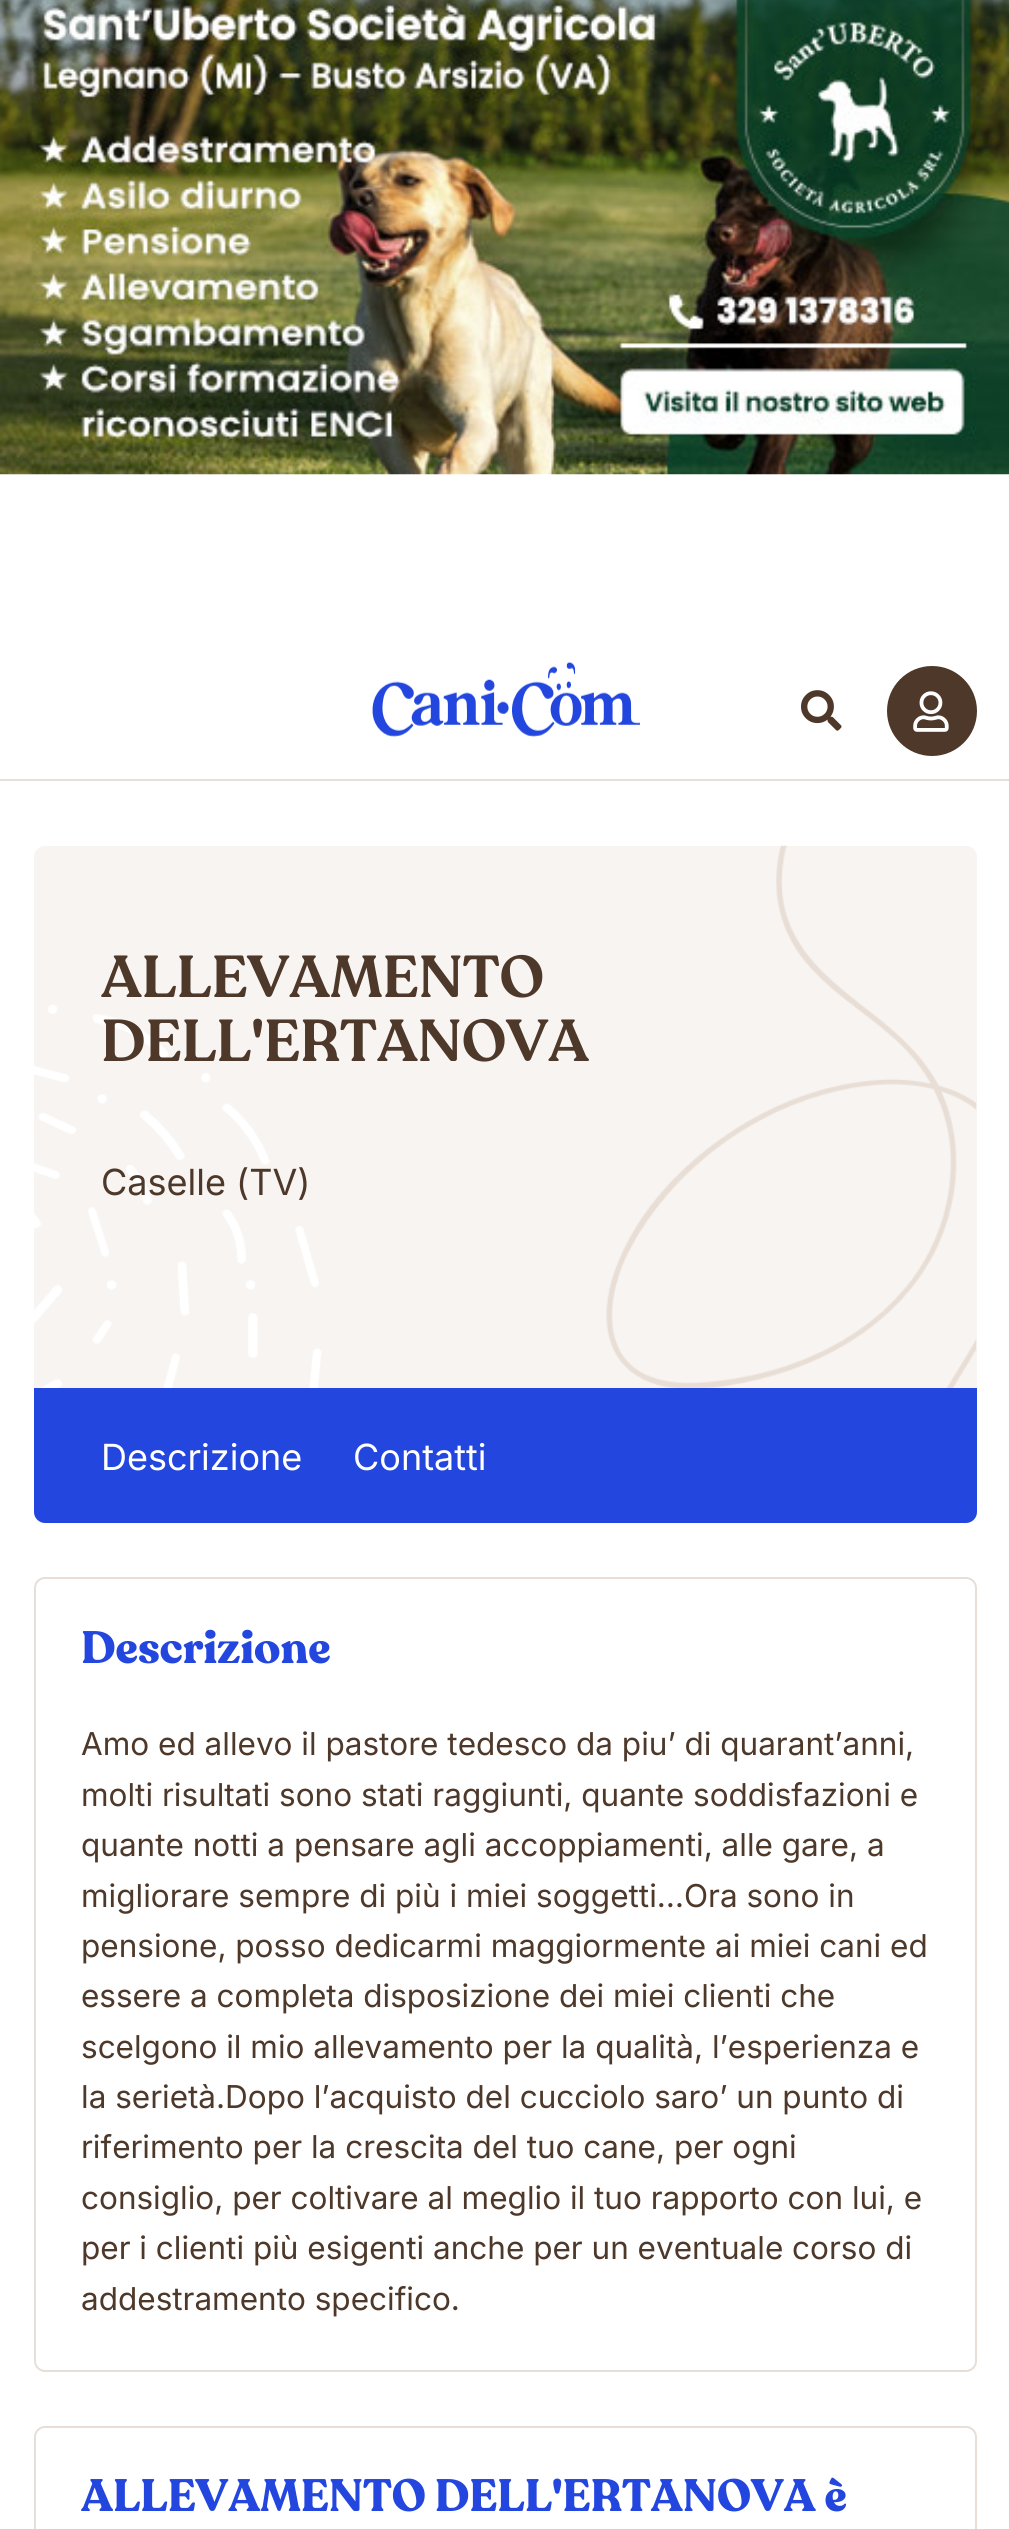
#include <cairo.h>
#include <math.h>
#include <stddef.h>

static cairo_t *ctx;

static void use_color(int r, int g, int b) {
    cairo_set_source_rgb(ctx, r / 255.0, g / 255.0, b / 255.0);
}

static void round_rect(double x, double y, double w, double h, double r) {
    cairo_new_sub_path(ctx);
    cairo_arc(ctx, x + w - r, y + h - r, r, 0, M_PI / 2);
    cairo_arc(ctx, x + r, y + h - r, r, M_PI / 2, M_PI);
    cairo_arc(ctx, x + r, y + r, r, M_PI, 1.5 * M_PI);
    cairo_arc(ctx, x + w - r, y + r, r, 1.5 * M_PI, 2 * M_PI);
    cairo_close_path(ctx);
}

static void picture(const char *path, double x, double y, double w, double h) {
    cairo_surface_t *image = cairo_image_surface_create_from_png(path);
    cairo_save(ctx);
    cairo_set_source_surface(ctx, image, x, y);
    cairo_rectangle(ctx, x, y, w, h);
    cairo_fill(ctx);
    cairo_restore(ctx);
    cairo_surface_destroy(image);
}

int main(void) {
    cairo_surface_t *surface = cairo_image_surface_create(CAIRO_FORMAT_RGB24, 1009, 2529);
    ctx = cairo_create(surface);
    cairo_font_options_t *options = cairo_font_options_create();
    cairo_font_options_set_hint_metrics(options, CAIRO_HINT_METRICS_OFF);
    cairo_font_options_set_hint_style(options, CAIRO_HINT_STYLE_NONE);
    cairo_set_font_options(ctx, options);
    cairo_set_miter_limit(ctx, 4);
    use_color(255, 255, 255);
    cairo_paint(ctx);
    picture("img1.png", 0, 0, 1009, 475);
    picture("img2.png", 372, 661, 268, 76);
    picture("img3.png", 801, 690, 41, 41);
    use_color(77, 56, 42);
    cairo_arc(ctx, 932, 711, 45, 0, 2 * M_PI);
    cairo_fill(ctx);
    picture("img4.png", 913, 691, 36, 41);
    use_color(232, 222, 214);
    cairo_rectangle(ctx, 0, 779, 1009, 2);
    cairo_fill(ctx);
    use_color(247, 244, 241);
    round_rect(34, 846, 943, 677, 11);
    cairo_fill(ctx);
    picture("img5.png", 34, 845, 943, 543);
    cairo_select_font_face(ctx, "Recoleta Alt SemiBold", CAIRO_FONT_SLANT_NORMAL, CAIRO_FONT_WEIGHT_NORMAL);
    cairo_set_font_size(ctx, 58.5);
    use_color(77, 56, 42);
    cairo_move_to(ctx, 101, 997);
    cairo_show_text(ctx, "ALLEVAMENTO");
    cairo_move_to(ctx, 101, 1061);
    cairo_show_text(ctx, "DELL'ERTANOVA");
    cairo_select_font_face(ctx, "Inter", CAIRO_FONT_SLANT_NORMAL, CAIRO_FONT_WEIGHT_NORMAL);
    cairo_set_font_size(ctx, 36);
    cairo_move_to(ctx, 101, 1195);
    cairo_show_text(ctx, "Caselle (TV)");
    use_color(34, 70, 222);
    cairo_new_path(ctx);
    cairo_move_to(ctx, 34, 1388);
    cairo_line_to(ctx, 977, 1388);
    cairo_line_to(ctx, 977, 1512);
    cairo_curve_to(ctx, 977, 1518, 972, 1523, 966, 1523);
    cairo_line_to(ctx, 45, 1523);
    cairo_curve_to(ctx, 39, 1523, 34, 1518, 34, 1512);
    cairo_close_path(ctx);
    cairo_fill(ctx);
    use_color(255, 255, 255);
    cairo_move_to(ctx, 101, 1470);
    cairo_show_text(ctx, "Descrizione");
    cairo_move_to(ctx, 353, 1470);
    cairo_show_text(ctx, "Contatti");
    round_rect(35, 1578, 941, 793, 10);
    use_color(232, 222, 214);
    cairo_stroke(ctx);
    cairo_select_font_face(ctx, "Recoleta Alt", CAIRO_FONT_SLANT_NORMAL, CAIRO_FONT_WEIGHT_BOLD);
    cairo_set_font_size(ctx, 45);
    use_color(34, 70, 222);
    cairo_move_to(ctx, 81, 1663);
    cairo_show_text(ctx, "Descrizione");
    cairo_select_font_face(ctx, "Inter", CAIRO_FONT_SLANT_NORMAL, CAIRO_FONT_WEIGHT_NORMAL);
    cairo_set_font_size(ctx, 31.5);
    use_color(77, 56, 42);
    cairo_move_to(ctx, 81, 1755);
    cairo_show_text(ctx, "Amo ed allevo il pastore tedesco da piu’ di quarant’anni,");
    cairo_move_to(ctx, 81, 1806);
    cairo_show_text(ctx, "molti risultati sono stati raggiunti, quante soddisfazioni e");
    cairo_move_to(ctx, 81, 1856);
    cairo_show_text(ctx, "quante notti a pensare agli accoppiamenti, alle gare, a");
    cairo_move_to(ctx, 81, 1907);
    cairo_show_text(ctx, "migliorare sempre di più i miei soggetti…Ora sono in");
    cairo_move_to(ctx, 81, 1957);
    cairo_show_text(ctx, "pensione, posso dedicarmi maggiormente ai miei cani ed");
    cairo_move_to(ctx, 81, 2007);
    cairo_show_text(ctx, "essere a completa disposizione dei miei clienti che");
    cairo_move_to(ctx, 81, 2058);
    cairo_show_text(ctx, "scelgono il mio allevamento per la qualità, l’esperienza e");
    cairo_move_to(ctx, 81, 2108);
    cairo_show_text(ctx, "la serietà.Dopo l’acquisto del cucciolo saro’ un punto di");
    cairo_move_to(ctx, 81, 2158);
    cairo_show_text(ctx, "riferimento per la crescita del tuo cane, per ogni");
    cairo_move_to(ctx, 81, 2209);
    cairo_show_text(ctx, "consiglio, per coltivare al meglio il tuo rapporto con lui, e");
    cairo_move_to(ctx, 81, 2259);
    cairo_show_text(ctx, "per i clienti più esigenti anche per un eventuale corso di");
    cairo_move_to(ctx, 81, 2310);
    cairo_show_text(ctx, "addestramento specifico.");
    round_rect(35, 2427, 941, 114, 10);
    use_color(232, 222, 214);
    cairo_stroke(ctx);
    cairo_select_font_face(ctx, "Recoleta Alt", CAIRO_FONT_SLANT_NORMAL, CAIRO_FONT_WEIGHT_BOLD);
    cairo_set_font_size(ctx, 45);
    use_color(34, 70, 222);
    cairo_move_to(ctx, 81, 2511);
    cairo_show_text(ctx, "ALLEVAMENTO DELL'ERTANOVA è");
    cairo_surface_write_to_png(surface, "result.png");
    cairo_font_options_destroy(options);
    cairo_destroy(ctx);
    cairo_surface_destroy(surface);
    return 0;
}
